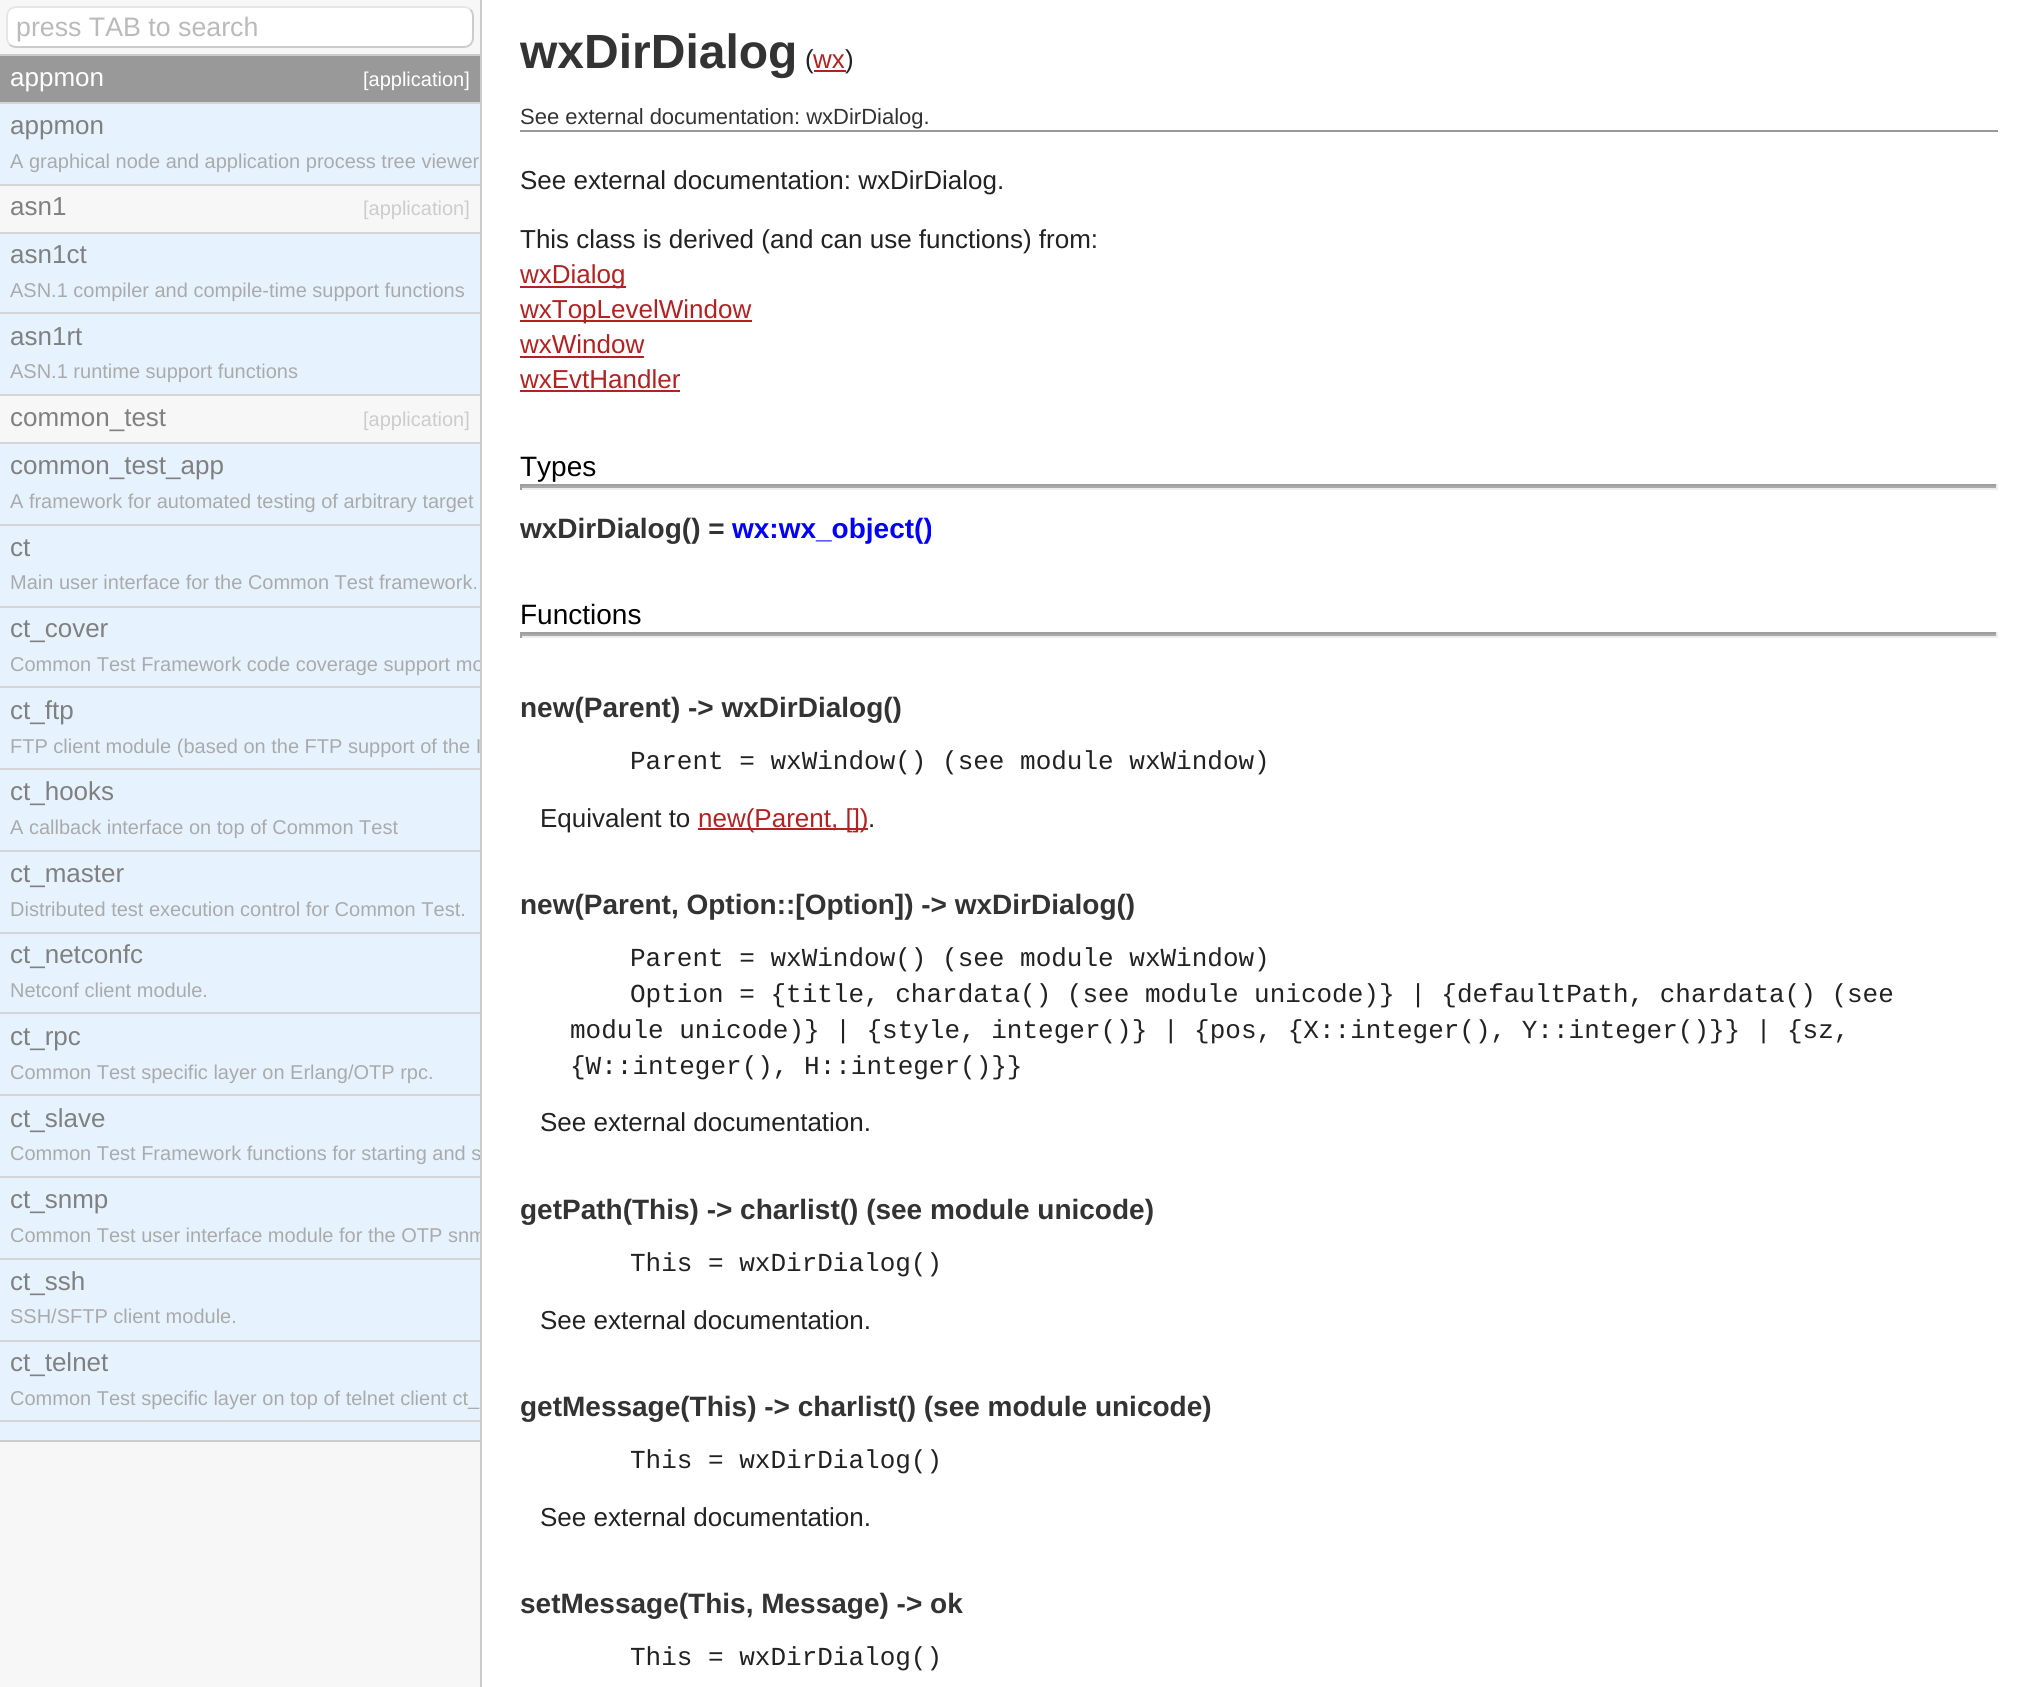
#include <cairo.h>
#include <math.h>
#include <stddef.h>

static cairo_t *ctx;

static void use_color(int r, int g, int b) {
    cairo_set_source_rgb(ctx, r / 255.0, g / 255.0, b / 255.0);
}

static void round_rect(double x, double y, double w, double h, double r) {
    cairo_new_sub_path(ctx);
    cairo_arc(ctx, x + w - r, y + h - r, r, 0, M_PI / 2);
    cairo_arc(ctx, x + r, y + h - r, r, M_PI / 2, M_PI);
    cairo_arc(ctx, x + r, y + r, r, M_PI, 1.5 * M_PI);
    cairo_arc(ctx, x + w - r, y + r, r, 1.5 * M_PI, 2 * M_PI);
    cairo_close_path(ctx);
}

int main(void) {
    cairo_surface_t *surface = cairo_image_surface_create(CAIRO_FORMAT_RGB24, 2038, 1687);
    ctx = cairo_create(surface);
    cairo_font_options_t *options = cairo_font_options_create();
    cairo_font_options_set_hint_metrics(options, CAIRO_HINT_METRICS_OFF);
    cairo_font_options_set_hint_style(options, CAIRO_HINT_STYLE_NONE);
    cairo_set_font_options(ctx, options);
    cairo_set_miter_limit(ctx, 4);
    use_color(255, 255, 255);
    cairo_paint(ctx);
    use_color(247, 247, 247);
    cairo_rectangle(ctx, 0, 0, 480, 1687);
    cairo_fill(ctx);
    use_color(204, 204, 204);
    cairo_rectangle(ctx, 480, 0, 2, 1687);
    cairo_fill(ctx);
    use_color(255, 255, 255);
    round_rect(6, 6, 468, 42, 10);
    cairo_fill(ctx);
    cairo_new_path(ctx);
    cairo_move_to(ctx, 470.5, 9.5);
    cairo_curve_to(ctx, 472, 11.5, 473, 13.5, 473, 16);
    cairo_line_to(ctx, 473, 38);
    cairo_curve_to(ctx, 473, 40.5, 472, 42.5, 470.5, 44.5);
    cairo_curve_to(ctx, 468.5, 46, 466.5, 47, 464, 47);
    cairo_line_to(ctx, 16, 47);
    cairo_curve_to(ctx, 13.5, 47, 11.5, 46, 9.5, 44.5);
    use_color(204, 204, 204);
    cairo_stroke(ctx);
    cairo_new_path(ctx);
    cairo_move_to(ctx, 9.5, 44.5);
    cairo_curve_to(ctx, 8, 42.5, 7, 40.5, 7, 38);
    cairo_line_to(ctx, 7, 16);
    cairo_curve_to(ctx, 7, 13.5, 8, 11.5, 9.5, 9.5);
    cairo_curve_to(ctx, 11.5, 8, 13.5, 7, 16, 7);
    cairo_line_to(ctx, 464, 7);
    cairo_curve_to(ctx, 466.5, 7, 468.5, 8, 470.5, 9.5);
    use_color(230, 230, 230);
    cairo_stroke(ctx);
    cairo_select_font_face(ctx, "Liberation Sans", CAIRO_FONT_SLANT_NORMAL, CAIRO_FONT_WEIGHT_NORMAL);
    cairo_set_font_size(ctx, 26.75);
    use_color(186, 186, 186);
    cairo_move_to(ctx, 16, 36);
    cairo_show_text(ctx, "press TAB to search");
    use_color(204, 204, 204);
    cairo_rectangle(ctx, 0, 54, 480, 2);
    cairo_fill(ctx);
    cairo_rectangle(ctx, 0, 1440, 480, 2);
    cairo_fill(ctx);
    use_color(153, 153, 153);
    cairo_rectangle(ctx, 0, 56, 480, 46);
    cairo_fill(ctx);
    use_color(213, 213, 213);
    cairo_rectangle(ctx, 0, 102, 480, 2);
    cairo_fill(ctx);
    cairo_set_font_size(ctx, 26);
    use_color(255, 255, 255);
    cairo_move_to(ctx, 10, 86);
    cairo_show_text(ctx, "appmon");
    cairo_set_font_size(ctx, 20);
    cairo_move_to(ctx, 363, 86);
    cairo_show_text(ctx, "[application]");
    use_color(230, 243, 255);
    cairo_rectangle(ctx, 0, 104, 480, 80);
    cairo_fill(ctx);
    use_color(213, 213, 213);
    cairo_rectangle(ctx, 0, 184, 480, 2);
    cairo_fill(ctx);
    cairo_set_font_size(ctx, 26);
    use_color(128, 128, 128);
    cairo_move_to(ctx, 10, 134);
    cairo_show_text(ctx, "appmon");
    cairo_set_font_size(ctx, 20);
    use_color(170, 170, 170);
    cairo_move_to(ctx, 10, 168);
    cairo_show_text(ctx, "A graphical node and application process tree viewer");
    use_color(213, 213, 213);
    cairo_rectangle(ctx, 0, 232, 480, 2);
    cairo_fill(ctx);
    cairo_set_font_size(ctx, 26);
    use_color(128, 128, 128);
    cairo_move_to(ctx, 10, 215);
    cairo_show_text(ctx, "asn1");
    cairo_set_font_size(ctx, 20);
    use_color(204, 204, 204);
    cairo_move_to(ctx, 363, 215);
    cairo_show_text(ctx, "[application]");
    use_color(230, 243, 255);
    cairo_rectangle(ctx, 0, 234, 480, 78);
    cairo_fill(ctx);
    use_color(213, 213, 213);
    cairo_rectangle(ctx, 0, 312, 480, 2);
    cairo_fill(ctx);
    cairo_set_font_size(ctx, 26);
    use_color(128, 128, 128);
    cairo_move_to(ctx, 10, 263);
    cairo_show_text(ctx, "asn1ct");
    cairo_set_font_size(ctx, 20);
    use_color(170, 170, 170);
    cairo_move_to(ctx, 10, 297);
    cairo_show_text(ctx, "ASN.1 compiler and compile-time support functions");
    use_color(230, 243, 255);
    cairo_rectangle(ctx, 0, 314, 480, 80);
    cairo_fill(ctx);
    use_color(213, 213, 213);
    cairo_rectangle(ctx, 0, 394, 480, 2);
    cairo_fill(ctx);
    cairo_set_font_size(ctx, 26);
    use_color(128, 128, 128);
    cairo_move_to(ctx, 10, 345);
    cairo_show_text(ctx, "asn1rt");
    cairo_set_font_size(ctx, 20);
    use_color(170, 170, 170);
    cairo_move_to(ctx, 10, 378);
    cairo_show_text(ctx, "ASN.1 runtime support functions");
    use_color(213, 213, 213);
    cairo_rectangle(ctx, 0, 442, 480, 2);
    cairo_fill(ctx);
    cairo_set_font_size(ctx, 26);
    use_color(128, 128, 128);
    cairo_move_to(ctx, 10, 426);
    cairo_show_text(ctx, "common_test");
    cairo_set_font_size(ctx, 20);
    use_color(204, 204, 204);
    cairo_move_to(ctx, 363, 426);
    cairo_show_text(ctx, "[application]");
    use_color(230, 243, 255);
    cairo_rectangle(ctx, 0, 444, 480, 80);
    cairo_fill(ctx);
    use_color(213, 213, 213);
    cairo_rectangle(ctx, 0, 524, 480, 2);
    cairo_fill(ctx);
    cairo_set_font_size(ctx, 26);
    use_color(128, 128, 128);
    cairo_move_to(ctx, 10, 474);
    cairo_show_text(ctx, "common_test_app");
    cairo_set_font_size(ctx, 20);
    use_color(170, 170, 170);
    cairo_move_to(ctx, 10, 508);
    cairo_show_text(ctx, "A framework for automated testing of arbitrary target");
    use_color(230, 243, 255);
    cairo_rectangle(ctx, 0, 526, 480, 80);
    cairo_fill(ctx);
    use_color(213, 213, 213);
    cairo_rectangle(ctx, 0, 606, 480, 2);
    cairo_fill(ctx);
    cairo_set_font_size(ctx, 26);
    use_color(128, 128, 128);
    cairo_move_to(ctx, 10, 556);
    cairo_show_text(ctx, "ct");
    cairo_set_font_size(ctx, 20);
    use_color(170, 170, 170);
    cairo_move_to(ctx, 10, 589);
    cairo_show_text(ctx, "Main user interface for the Common Test framework.");
    use_color(230, 243, 255);
    cairo_rectangle(ctx, 0, 608, 480, 78);
    cairo_fill(ctx);
    use_color(213, 213, 213);
    cairo_rectangle(ctx, 0, 686, 480, 2);
    cairo_fill(ctx);
    cairo_set_font_size(ctx, 26);
    use_color(128, 128, 128);
    cairo_move_to(ctx, 10, 637);
    cairo_show_text(ctx, "ct_cover");
    cairo_save(ctx);
    cairo_rectangle(ctx, 0, 608, 480, 78);
    cairo_clip(ctx);
    cairo_set_font_size(ctx, 20);
    use_color(170, 170, 170);
    cairo_move_to(ctx, 10, 671);
    cairo_show_text(ctx, "Common Test Framework code coverage support mo");
    cairo_restore(ctx);
    use_color(230, 243, 255);
    cairo_rectangle(ctx, 0, 688, 480, 80);
    cairo_fill(ctx);
    use_color(213, 213, 213);
    cairo_rectangle(ctx, 0, 768, 480, 2);
    cairo_fill(ctx);
    use_color(128, 128, 128);
    cairo_move_to(ctx, 10, 719);
    cairo_show_text(ctx, "ct_ftp");
    cairo_set_font_size(ctx, 20);
    use_color(170, 170, 170);
    cairo_move_to(ctx, 10, 753);
    cairo_show_text(ctx, "FTP client module (based on the FTP support of the I");
    use_color(230, 243, 255);
    cairo_rectangle(ctx, 0, 770, 480, 80);
    cairo_fill(ctx);
    use_color(213, 213, 213);
    cairo_rectangle(ctx, 0, 850, 480, 2);
    cairo_fill(ctx);
    cairo_set_font_size(ctx, 26);
    use_color(128, 128, 128);
    cairo_move_to(ctx, 10, 800);
    cairo_show_text(ctx, "ct_hooks");
    cairo_set_font_size(ctx, 20);
    use_color(170, 170, 170);
    cairo_move_to(ctx, 10, 834);
    cairo_show_text(ctx, "A callback interface on top of Common Test");
    use_color(230, 243, 255);
    cairo_rectangle(ctx, 0, 852, 480, 80);
    cairo_fill(ctx);
    use_color(213, 213, 213);
    cairo_rectangle(ctx, 0, 932, 480, 2);
    cairo_fill(ctx);
    cairo_set_font_size(ctx, 26);
    use_color(128, 128, 128);
    cairo_move_to(ctx, 10, 882);
    cairo_show_text(ctx, "ct_master");
    cairo_set_font_size(ctx, 20);
    use_color(170, 170, 170);
    cairo_move_to(ctx, 10, 916);
    cairo_show_text(ctx, "Distributed test execution control for Common Test.");
    use_color(230, 243, 255);
    cairo_rectangle(ctx, 0, 934, 480, 78);
    cairo_fill(ctx);
    use_color(213, 213, 213);
    cairo_rectangle(ctx, 0, 1012, 480, 2);
    cairo_fill(ctx);
    cairo_set_font_size(ctx, 26);
    use_color(128, 128, 128);
    cairo_move_to(ctx, 10, 963);
    cairo_show_text(ctx, "ct_netconfc");
    cairo_set_font_size(ctx, 20);
    use_color(170, 170, 170);
    cairo_move_to(ctx, 10, 997);
    cairo_show_text(ctx, "Netconf client module.");
    use_color(230, 243, 255);
    cairo_rectangle(ctx, 0, 1014, 480, 80);
    cairo_fill(ctx);
    use_color(213, 213, 213);
    cairo_rectangle(ctx, 0, 1094, 480, 2);
    cairo_fill(ctx);
    cairo_set_font_size(ctx, 26);
    use_color(128, 128, 128);
    cairo_move_to(ctx, 10, 1045);
    cairo_show_text(ctx, "ct_rpc");
    cairo_set_font_size(ctx, 20);
    use_color(170, 170, 170);
    cairo_move_to(ctx, 10, 1079);
    cairo_show_text(ctx, "Common Test specific layer on Erlang/OTP rpc.");
    use_color(230, 243, 255);
    cairo_rectangle(ctx, 0, 1096, 480, 80);
    cairo_fill(ctx);
    use_color(213, 213, 213);
    cairo_rectangle(ctx, 0, 1176, 480, 2);
    cairo_fill(ctx);
    cairo_set_font_size(ctx, 26);
    use_color(128, 128, 128);
    cairo_move_to(ctx, 10, 1127);
    cairo_show_text(ctx, "ct_slave");
    cairo_save(ctx);
    cairo_rectangle(ctx, 0, 1096, 480, 80);
    cairo_clip(ctx);
    cairo_set_font_size(ctx, 20);
    use_color(170, 170, 170);
    cairo_move_to(ctx, 10, 1160);
    cairo_show_text(ctx, "Common Test Framework functions for starting and s");
    cairo_restore(ctx);
    use_color(230, 243, 255);
    cairo_rectangle(ctx, 0, 1178, 480, 80);
    cairo_fill(ctx);
    use_color(213, 213, 213);
    cairo_rectangle(ctx, 0, 1258, 480, 2);
    cairo_fill(ctx);
    use_color(128, 128, 128);
    cairo_move_to(ctx, 10, 1208);
    cairo_show_text(ctx, "ct_snmp");
    cairo_save(ctx);
    cairo_rectangle(ctx, 0, 1178, 480, 80);
    cairo_clip(ctx);
    cairo_set_font_size(ctx, 20);
    use_color(170, 170, 170);
    cairo_move_to(ctx, 10, 1242);
    cairo_show_text(ctx, "Common Test user interface module for the OTP snm");
    cairo_restore(ctx);
    use_color(230, 243, 255);
    cairo_rectangle(ctx, 0, 1260, 480, 80);
    cairo_fill(ctx);
    use_color(213, 213, 213);
    cairo_rectangle(ctx, 0, 1340, 480, 2);
    cairo_fill(ctx);
    use_color(128, 128, 128);
    cairo_move_to(ctx, 10, 1290);
    cairo_show_text(ctx, "ct_ssh");
    cairo_set_font_size(ctx, 20);
    use_color(170, 170, 170);
    cairo_move_to(ctx, 10, 1323);
    cairo_show_text(ctx, "SSH/SFTP client module.");
    use_color(230, 243, 255);
    cairo_rectangle(ctx, 0, 1342, 480, 78);
    cairo_fill(ctx);
    use_color(213, 213, 213);
    cairo_rectangle(ctx, 0, 1420, 480, 2);
    cairo_fill(ctx);
    cairo_set_font_size(ctx, 26);
    use_color(128, 128, 128);
    cairo_move_to(ctx, 10, 1371);
    cairo_show_text(ctx, "ct_telnet");
    cairo_set_font_size(ctx, 20);
    use_color(170, 170, 170);
    cairo_move_to(ctx, 10, 1405);
    cairo_show_text(ctx, "Common Test specific layer on top of telnet client ct_");
    use_color(230, 243, 255);
    cairo_rectangle(ctx, 0, 1422, 480, 18);
    cairo_fill(ctx);
    cairo_select_font_face(ctx, "Liberation Sans", CAIRO_FONT_SLANT_NORMAL, CAIRO_FONT_WEIGHT_BOLD);
    cairo_set_font_size(ctx, 48);
    use_color(51, 51, 51);
    cairo_move_to(ctx, 520, 68);
    cairo_show_text(ctx, "wxDirDialog");
    cairo_select_font_face(ctx, "Liberation Sans", CAIRO_FONT_SLANT_NORMAL, CAIRO_FONT_WEIGHT_NORMAL);
    cairo_set_font_size(ctx, 26);
    use_color(34, 34, 34);
    cairo_move_to(ctx, 805, 68);
    cairo_show_text(ctx, "(");
    use_color(178, 34, 34);
    cairo_move_to(ctx, 813, 68);
    cairo_show_text(ctx, "wx");
    cairo_rectangle(ctx, 814, 70, 32, 2);
    cairo_fill(ctx);
    use_color(34, 34, 34);
    cairo_move_to(ctx, 845, 68);
    cairo_show_text(ctx, ")");
    use_color(153, 153, 153);
    cairo_rectangle(ctx, 520, 130, 1478, 2);
    cairo_fill(ctx);
    cairo_set_font_size(ctx, 22);
    use_color(51, 51, 51);
    cairo_move_to(ctx, 520, 124);
    cairo_show_text(ctx, "See external documentation: wxDirDialog.");
    cairo_set_font_size(ctx, 26);
    use_color(34, 34, 34);
    cairo_move_to(ctx, 520, 189);
    cairo_show_text(ctx, "See external documentation: wxDirDialog.");
    cairo_move_to(ctx, 520, 248);
    cairo_show_text(ctx, "This class is derived (and can use functions) from:");
    use_color(178, 34, 34);
    cairo_rectangle(ctx, 520, 286, 106, 2);
    cairo_fill(ctx);
    cairo_move_to(ctx, 520, 283);
    cairo_show_text(ctx, "wxDialog");
    cairo_rectangle(ctx, 520, 320, 232, 2);
    cairo_fill(ctx);
    cairo_move_to(ctx, 520, 318);
    cairo_show_text(ctx, "wxTopLevelWindow");
    cairo_move_to(ctx, 520, 353);
    cairo_show_text(ctx, "wxWindow");
    cairo_rectangle(ctx, 520, 356, 124, 2);
    cairo_fill(ctx);
    cairo_move_to(ctx, 520, 388);
    cairo_show_text(ctx, "wxEvtHandler");
    cairo_rectangle(ctx, 520, 390, 160, 2);
    cairo_fill(ctx);
    cairo_set_font_size(ctx, 28);
    use_color(0, 0, 0);
    cairo_move_to(ctx, 520, 476);
    cairo_show_text(ctx, "Types");
    use_color(170, 170, 170);
    cairo_rectangle(ctx, 520, 486, 1478, 2);
    cairo_fill(ctx);
    use_color(159, 159, 159);
    cairo_rectangle(ctx, 520, 484, 1478, 2);
    cairo_fill(ctx);
    use_color(238, 238, 238);
    cairo_rectangle(ctx, 1996, 484, 2, 6);
    cairo_fill(ctx);
    cairo_rectangle(ctx, 520, 488, 1478, 2);
    cairo_fill(ctx);
    use_color(159, 159, 159);
    cairo_rectangle(ctx, 520, 484, 2, 6);
    cairo_fill(ctx);
    cairo_select_font_face(ctx, "Liberation Sans", CAIRO_FONT_SLANT_NORMAL, CAIRO_FONT_WEIGHT_BOLD);
    use_color(51, 51, 51);
    cairo_move_to(ctx, 520, 538);
    cairo_show_text(ctx, "wxDirDialog() =");
    use_color(0, 0, 255);
    cairo_move_to(ctx, 732, 538);
    cairo_show_text(ctx, "wx:wx_object()");
    cairo_select_font_face(ctx, "Liberation Sans", CAIRO_FONT_SLANT_NORMAL, CAIRO_FONT_WEIGHT_NORMAL);
    use_color(0, 0, 0);
    cairo_move_to(ctx, 520, 624);
    cairo_show_text(ctx, "Functions");
    use_color(170, 170, 170);
    cairo_rectangle(ctx, 520, 634, 1478, 2);
    cairo_fill(ctx);
    use_color(159, 159, 159);
    cairo_rectangle(ctx, 520, 632, 1478, 2);
    cairo_fill(ctx);
    use_color(238, 238, 238);
    cairo_rectangle(ctx, 1996, 632, 2, 6);
    cairo_fill(ctx);
    cairo_rectangle(ctx, 520, 636, 1478, 2);
    cairo_fill(ctx);
    use_color(159, 159, 159);
    cairo_rectangle(ctx, 520, 632, 2, 6);
    cairo_fill(ctx);
    cairo_select_font_face(ctx, "Liberation Sans", CAIRO_FONT_SLANT_NORMAL, CAIRO_FONT_WEIGHT_BOLD);
    use_color(51, 51, 51);
    cairo_move_to(ctx, 520, 717);
    cairo_show_text(ctx, "new(Parent) -> wxDirDialog()");
    cairo_select_font_face(ctx, "Liberation Mono", CAIRO_FONT_SLANT_NORMAL, CAIRO_FONT_WEIGHT_NORMAL);
    cairo_set_font_size(ctx, 26);
    use_color(34, 34, 34);
    cairo_move_to(ctx, 630, 769);
    cairo_show_text(ctx, "Parent = wxWindow() (see module wxWindow)");
    cairo_select_font_face(ctx, "Liberation Sans", CAIRO_FONT_SLANT_NORMAL, CAIRO_FONT_WEIGHT_NORMAL);
    cairo_move_to(ctx, 540, 827);
    cairo_show_text(ctx, "Equivalent to");
    use_color(178, 34, 34);
    cairo_rectangle(ctx, 698, 828, 170, 2);
    cairo_fill(ctx);
    cairo_move_to(ctx, 698, 827);
    cairo_show_text(ctx, "new(Parent, [])");
    use_color(34, 34, 34);
    cairo_move_to(ctx, 868, 827);
    cairo_show_text(ctx, ".");
    cairo_select_font_face(ctx, "Liberation Sans", CAIRO_FONT_SLANT_NORMAL, CAIRO_FONT_WEIGHT_BOLD);
    cairo_set_font_size(ctx, 28);
    use_color(51, 51, 51);
    cairo_move_to(ctx, 520, 914);
    cairo_show_text(ctx, "new(Parent, Option::[Option]) -> wxDirDialog()");
    cairo_select_font_face(ctx, "Liberation Mono", CAIRO_FONT_SLANT_NORMAL, CAIRO_FONT_WEIGHT_NORMAL);
    cairo_set_font_size(ctx, 26);
    use_color(34, 34, 34);
    cairo_move_to(ctx, 630, 966);
    cairo_show_text(ctx, "Parent = wxWindow() (see module wxWindow)");
    cairo_move_to(ctx, 630, 1002);
    cairo_show_text(ctx, "Option = {title, chardata() (see module unicode)} | {defaultPath, chardata() (see");
    cairo_move_to(ctx, 570, 1038);
    cairo_show_text(ctx, "module unicode)} | {style, integer()} | {pos, {X::integer(), Y::integer()}} | {sz,");
    cairo_move_to(ctx, 570, 1074);
    cairo_show_text(ctx, "{W::integer(), H::integer()}}");
    cairo_select_font_face(ctx, "Liberation Sans", CAIRO_FONT_SLANT_NORMAL, CAIRO_FONT_WEIGHT_NORMAL);
    cairo_move_to(ctx, 540, 1131);
    cairo_show_text(ctx, "See external documentation.");
    cairo_select_font_face(ctx, "Liberation Sans", CAIRO_FONT_SLANT_NORMAL, CAIRO_FONT_WEIGHT_BOLD);
    cairo_set_font_size(ctx, 28);
    use_color(51, 51, 51);
    cairo_move_to(ctx, 520, 1219);
    cairo_show_text(ctx, "getPath(This) -> charlist() (see module unicode)");
    cairo_select_font_face(ctx, "Liberation Mono", CAIRO_FONT_SLANT_NORMAL, CAIRO_FONT_WEIGHT_NORMAL);
    cairo_set_font_size(ctx, 26);
    use_color(34, 34, 34);
    cairo_move_to(ctx, 630, 1271);
    cairo_show_text(ctx, "This = wxDirDialog()");
    cairo_select_font_face(ctx, "Liberation Sans", CAIRO_FONT_SLANT_NORMAL, CAIRO_FONT_WEIGHT_NORMAL);
    cairo_move_to(ctx, 540, 1329);
    cairo_show_text(ctx, "See external documentation.");
    cairo_select_font_face(ctx, "Liberation Sans", CAIRO_FONT_SLANT_NORMAL, CAIRO_FONT_WEIGHT_BOLD);
    cairo_set_font_size(ctx, 28);
    use_color(51, 51, 51);
    cairo_move_to(ctx, 520, 1416);
    cairo_show_text(ctx, "getMessage(This) -> charlist() (see module unicode)");
    cairo_select_font_face(ctx, "Liberation Mono", CAIRO_FONT_SLANT_NORMAL, CAIRO_FONT_WEIGHT_NORMAL);
    cairo_set_font_size(ctx, 26);
    use_color(34, 34, 34);
    cairo_move_to(ctx, 630, 1468);
    cairo_show_text(ctx, "This = wxDirDialog()");
    cairo_select_font_face(ctx, "Liberation Sans", CAIRO_FONT_SLANT_NORMAL, CAIRO_FONT_WEIGHT_NORMAL);
    cairo_move_to(ctx, 540, 1526);
    cairo_show_text(ctx, "See external documentation.");
    cairo_select_font_face(ctx, "Liberation Sans", CAIRO_FONT_SLANT_NORMAL, CAIRO_FONT_WEIGHT_BOLD);
    cairo_set_font_size(ctx, 28);
    use_color(51, 51, 51);
    cairo_move_to(ctx, 520, 1613);
    cairo_show_text(ctx, "setMessage(This, Message) -> ok");
    cairo_select_font_face(ctx, "Liberation Mono", CAIRO_FONT_SLANT_NORMAL, CAIRO_FONT_WEIGHT_NORMAL);
    cairo_set_font_size(ctx, 26);
    use_color(34, 34, 34);
    cairo_move_to(ctx, 630, 1665);
    cairo_show_text(ctx, "This = wxDirDialog()");
    cairo_surface_write_to_png(surface, "result.png");
    cairo_font_options_destroy(options);
    cairo_destroy(ctx);
    cairo_surface_destroy(surface);
    return 0;
}
